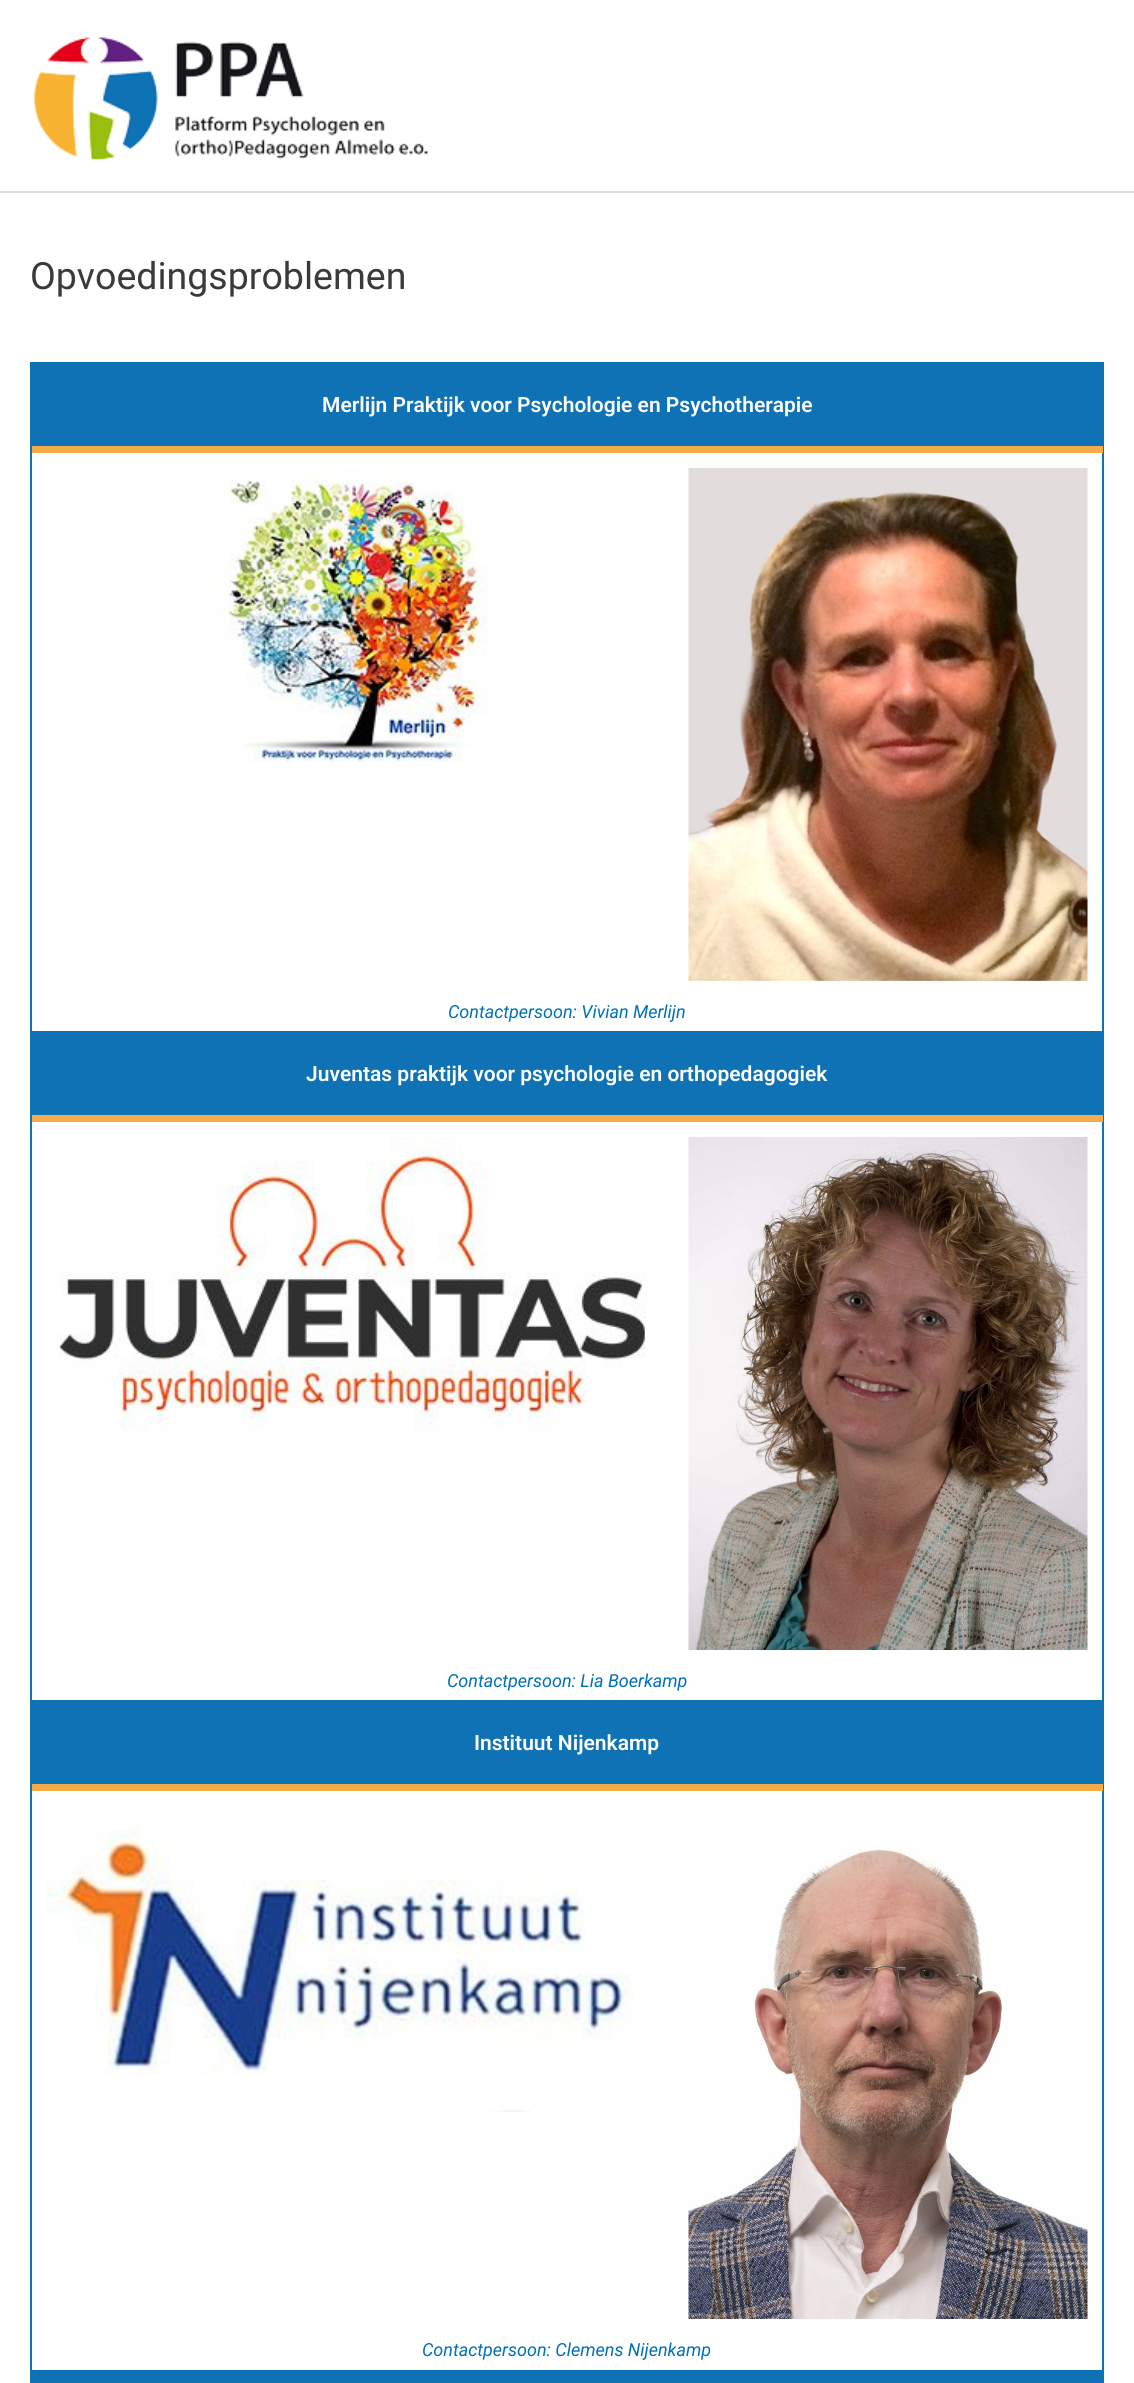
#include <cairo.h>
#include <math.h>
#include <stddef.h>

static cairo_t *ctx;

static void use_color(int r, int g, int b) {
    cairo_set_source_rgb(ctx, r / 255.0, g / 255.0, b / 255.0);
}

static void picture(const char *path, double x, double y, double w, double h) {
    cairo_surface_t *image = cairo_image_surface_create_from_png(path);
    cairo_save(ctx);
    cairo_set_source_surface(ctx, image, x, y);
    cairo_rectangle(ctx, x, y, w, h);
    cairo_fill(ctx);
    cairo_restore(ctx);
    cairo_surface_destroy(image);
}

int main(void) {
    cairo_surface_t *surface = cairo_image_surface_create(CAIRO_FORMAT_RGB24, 1134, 2383);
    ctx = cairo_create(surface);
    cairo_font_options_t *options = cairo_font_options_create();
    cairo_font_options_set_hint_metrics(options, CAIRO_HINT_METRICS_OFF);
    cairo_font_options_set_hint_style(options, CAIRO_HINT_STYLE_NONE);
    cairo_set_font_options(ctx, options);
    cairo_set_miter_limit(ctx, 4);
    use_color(255, 255, 255);
    cairo_paint(ctx);
    use_color(221, 221, 221);
    cairo_rectangle(ctx, 0, 191, 1134, 2);
    cairo_fill(ctx);
    picture("img1.png", 34, 36, 394, 125);
    cairo_select_font_face(ctx, "Roboto", CAIRO_FONT_SLANT_NORMAL, CAIRO_FONT_WEIGHT_NORMAL);
    cairo_set_font_size(ctx, 37.5);
    use_color(58, 58, 58);
    cairo_move_to(ctx, 30, 289);
    cairo_show_text(ctx, "Opvoedingsproblemen");
    cairo_rectangle(ctx, 31, 363, 1072, 752);
    use_color(15, 114, 181);
    cairo_stroke(ctx);
    use_color(14, 114, 181);
    cairo_rectangle(ctx, 32, 364, 1070, 82);
    cairo_fill(ctx);
    use_color(244, 172, 74);
    cairo_rectangle(ctx, 32, 446, 1071, 7);
    cairo_fill(ctx);
    cairo_select_font_face(ctx, "Roboto SemiBold", CAIRO_FONT_SLANT_NORMAL, CAIRO_FONT_WEIGHT_NORMAL);
    cairo_set_font_size(ctx, 21);
    use_color(255, 255, 255);
    cairo_move_to(ctx, 322, 412);
    cairo_show_text(ctx, "Merlijn Praktijk voor Psychologie en Psychotherapie");
    picture("img2.png", 217, 468, 271, 294);
    picture("img3.png", 688, 468, 400, 513);
    cairo_select_font_face(ctx, "Roboto", CAIRO_FONT_SLANT_ITALIC, CAIRO_FONT_WEIGHT_NORMAL);
    cairo_set_font_size(ctx, 18);
    use_color(1, 112, 185);
    cairo_move_to(ctx, 448, 1018);
    cairo_show_text(ctx, "Contactpersoon: Vivian Merlijn");
    cairo_rectangle(ctx, 31, 1032, 1072, 752);
    use_color(15, 114, 181);
    cairo_stroke(ctx);
    use_color(14, 114, 181);
    cairo_rectangle(ctx, 32, 1033, 1070, 81);
    cairo_fill(ctx);
    use_color(244, 172, 74);
    cairo_rectangle(ctx, 32, 1115, 1071, 7);
    cairo_fill(ctx);
    cairo_select_font_face(ctx, "Roboto SemiBold", CAIRO_FONT_SLANT_NORMAL, CAIRO_FONT_WEIGHT_NORMAL);
    cairo_set_font_size(ctx, 21);
    use_color(255, 255, 255);
    cairo_move_to(ctx, 306, 1081);
    cairo_show_text(ctx, "Juventas praktijk voor psychologie en orthopedagogiek");
    picture("img4.png", 59, 1137, 588, 295);
    picture("img5.png", 688, 1137, 400, 513);
    cairo_select_font_face(ctx, "Roboto", CAIRO_FONT_SLANT_ITALIC, CAIRO_FONT_WEIGHT_NORMAL);
    cairo_set_font_size(ctx, 18);
    use_color(1, 112, 185);
    cairo_move_to(ctx, 447, 1687);
    cairo_show_text(ctx, "Contactpersoon: Lia Boerkamp");
    cairo_rectangle(ctx, 31, 1701, 1072, 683);
    use_color(15, 114, 181);
    cairo_stroke(ctx);
    use_color(14, 114, 181);
    cairo_rectangle(ctx, 32, 1702, 1070, 81);
    cairo_fill(ctx);
    use_color(244, 172, 74);
    cairo_rectangle(ctx, 32, 1784, 1071, 7);
    cairo_fill(ctx);
    cairo_select_font_face(ctx, "Roboto SemiBold", CAIRO_FONT_SLANT_NORMAL, CAIRO_FONT_WEIGHT_NORMAL);
    cairo_set_font_size(ctx, 21);
    use_color(255, 255, 255);
    cairo_move_to(ctx, 474, 1750);
    cairo_show_text(ctx, "Instituut Nijenkamp");
    picture("img6.png", 46, 1824, 593, 288);
    picture("img7.png", 688, 1846, 400, 473);
    cairo_select_font_face(ctx, "Roboto", CAIRO_FONT_SLANT_ITALIC, CAIRO_FONT_WEIGHT_NORMAL);
    cairo_set_font_size(ctx, 18);
    use_color(1, 112, 185);
    cairo_move_to(ctx, 422, 2356);
    cairo_show_text(ctx, "Contactpersoon: Clemens Nijenkamp");
    cairo_rectangle(ctx, 31, 2371, 1072, 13);
    use_color(15, 114, 181);
    cairo_stroke(ctx);
    use_color(14, 114, 181);
    cairo_rectangle(ctx, 32, 2372, 1070, 11);
    cairo_fill(ctx);
    cairo_surface_write_to_png(surface, "result.png");
    cairo_font_options_destroy(options);
    cairo_destroy(ctx);
    cairo_surface_destroy(surface);
    return 0;
}
